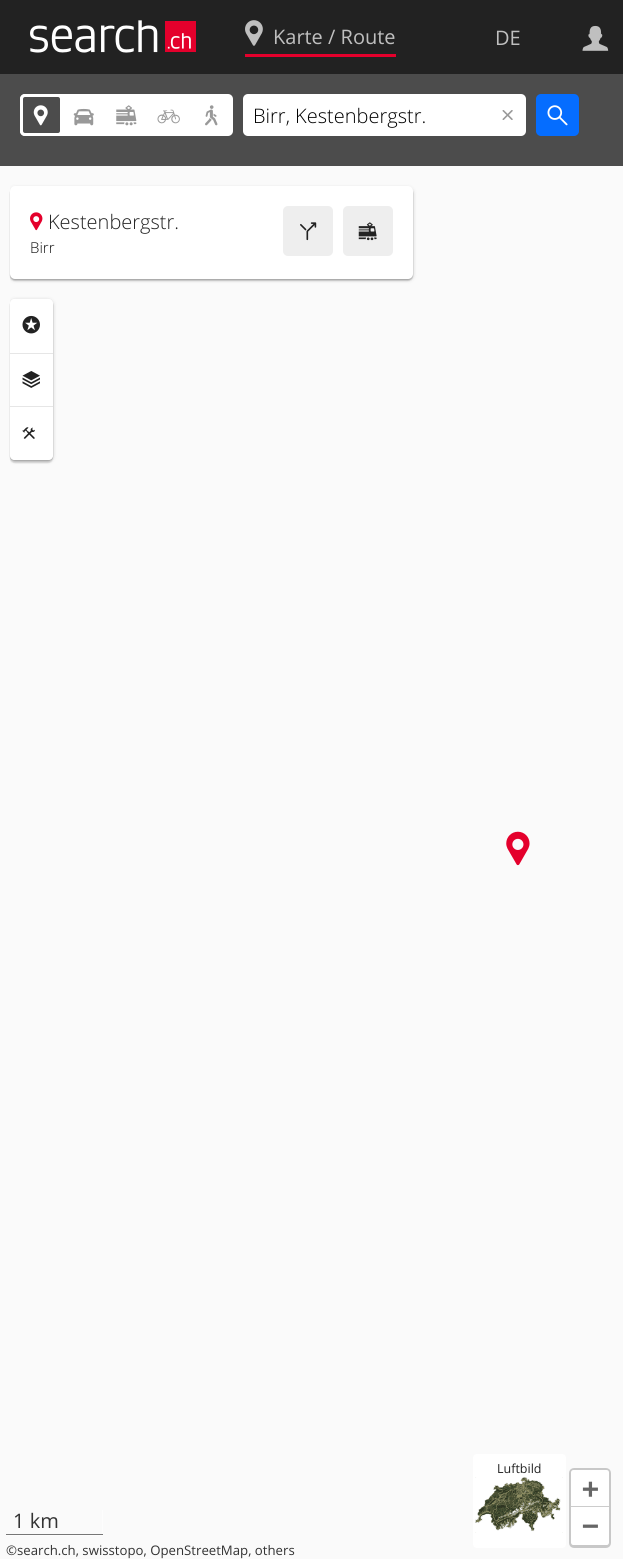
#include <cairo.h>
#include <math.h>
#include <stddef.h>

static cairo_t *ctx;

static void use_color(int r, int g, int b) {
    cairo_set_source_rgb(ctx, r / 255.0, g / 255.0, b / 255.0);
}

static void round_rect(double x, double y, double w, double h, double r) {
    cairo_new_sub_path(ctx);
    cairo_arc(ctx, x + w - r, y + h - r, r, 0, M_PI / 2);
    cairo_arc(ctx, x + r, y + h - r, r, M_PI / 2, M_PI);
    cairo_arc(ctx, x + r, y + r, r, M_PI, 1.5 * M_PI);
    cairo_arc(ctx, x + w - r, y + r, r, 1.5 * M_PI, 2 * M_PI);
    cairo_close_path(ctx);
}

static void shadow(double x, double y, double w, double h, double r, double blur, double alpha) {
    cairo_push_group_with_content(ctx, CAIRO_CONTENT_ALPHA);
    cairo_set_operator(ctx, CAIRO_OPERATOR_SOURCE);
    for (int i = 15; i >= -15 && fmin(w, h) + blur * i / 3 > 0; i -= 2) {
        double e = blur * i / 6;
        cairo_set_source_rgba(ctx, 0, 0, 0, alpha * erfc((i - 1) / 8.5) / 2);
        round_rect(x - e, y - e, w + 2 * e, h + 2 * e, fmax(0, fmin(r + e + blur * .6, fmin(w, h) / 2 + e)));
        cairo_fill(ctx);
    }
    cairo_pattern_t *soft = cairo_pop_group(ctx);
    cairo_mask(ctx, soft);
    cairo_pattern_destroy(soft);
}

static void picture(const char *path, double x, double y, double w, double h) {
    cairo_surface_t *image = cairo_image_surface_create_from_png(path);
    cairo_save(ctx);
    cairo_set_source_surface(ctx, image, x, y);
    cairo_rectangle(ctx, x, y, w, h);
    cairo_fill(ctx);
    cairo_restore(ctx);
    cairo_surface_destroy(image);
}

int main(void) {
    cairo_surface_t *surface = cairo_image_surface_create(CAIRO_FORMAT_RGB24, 623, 1559);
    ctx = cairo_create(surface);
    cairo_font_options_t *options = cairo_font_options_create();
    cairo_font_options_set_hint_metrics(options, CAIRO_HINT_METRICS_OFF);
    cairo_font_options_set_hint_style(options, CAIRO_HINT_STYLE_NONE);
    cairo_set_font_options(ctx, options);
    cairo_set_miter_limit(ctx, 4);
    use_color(250, 250, 250);
    cairo_paint(ctx);
    use_color(34, 34, 34);
    cairo_rectangle(ctx, 0, 0, 623, 74);
    cairo_fill(ctx);
    picture("img1.png", 30, 20, 166, 33);
    use_color(228, 0, 44);
    cairo_rectangle(ctx, 245, 54, 151, 3);
    cairo_fill(ctx);
    picture("img2.png", 245, 20, 18, 26);
    cairo_select_font_face(ctx, "Open Sans", CAIRO_FONT_SLANT_NORMAL, CAIRO_FONT_WEIGHT_NORMAL);
    cairo_set_font_size(ctx, 20);
    use_color(191, 191, 191);
    cairo_move_to(ctx, 273, 44);
    cairo_show_text(ctx, "Karte / Route");
    cairo_move_to(ctx, 495, 45);
    cairo_show_text(ctx, "DE");
    picture("img3.png", 582, 25, 27, 26);
    use_color(76, 76, 76);
    cairo_rectangle(ctx, 0, 74, 623, 92);
    cairo_fill(ctx);
    use_color(255, 255, 255);
    round_rect(20, 94, 213, 42, 5);
    cairo_fill(ctx);
    use_color(76, 76, 76);
    round_rect(21.5, 95.5, 40, 39, 3.5);
    cairo_fill_preserve(ctx);
    use_color(255, 255, 255);
    cairo_set_line_width(ctx, 3);
    cairo_stroke(ctx);
    picture("img4.png", 33, 105, 15, 21);
    picture("img5.png", 73, 108, 21, 18);
    picture("img6.png", 116, 105, 21, 21);
    picture("img7.png", 157, 109, 23, 15);
    picture("img8.png", 205, 105, 13, 21);
    round_rect(243, 94, 283, 42, 5);
    cairo_fill(ctx);
    cairo_select_font_face(ctx, "Open Sans Light", CAIRO_FONT_SLANT_NORMAL, CAIRO_FONT_WEIGHT_NORMAL);
    use_color(0, 0, 0);
    cairo_move_to(ctx, 253, 123);
    cairo_show_text(ctx, "Birr, Kestenbergstr.");
    picture("img9.png", 502, 110, 11, 10);
    use_color(5, 109, 255);
    round_rect(536, 94, 43, 42, 5);
    cairo_fill(ctx);
    picture("img10.png", 547, 105, 21, 21);
    cairo_save(ctx);
    cairo_rectangle(ctx, 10, 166, 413, 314);
    cairo_clip(ctx);
    use_color(0, 0, 0);
    shadow(10, 188, 403, 92, 5, 2, 0.2);
    cairo_restore(ctx);
    use_color(0, 0, 0);
    shadow(10, 189, 403, 92, 5, 0.5, 0.12);
    shadow(10, 188, 403, 92, 5, 0.5, 0.14);
    use_color(255, 255, 255);
    round_rect(10, 186, 403, 93, 5);
    cairo_fill(ctx);
    picture("img11.png", 30, 212, 13, 19);
    use_color(34, 34, 34);
    cairo_move_to(ctx, 48, 229);
    cairo_show_text(ctx, "Kestenbergstr.");
    use_color(238, 238, 238);
    round_rect(283, 206, 50, 50, 5);
    cairo_fill(ctx);
    picture("img12.png", 300, 222, 17, 19);
    round_rect(343, 206, 50, 50, 5);
    cairo_fill(ctx);
    picture("img13.png", 358, 222, 19, 19);
    cairo_set_font_size(ctx, 15);
    use_color(17, 17, 17);
    cairo_move_to(ctx, 30, 253);
    cairo_show_text(ctx, "Birr");
    cairo_save(ctx);
    cairo_rectangle(ctx, 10, 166, 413, 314);
    cairo_clip(ctx);
    use_color(0, 0, 0);
    shadow(10, 300, 43, 161, 5, 2, 0.2);
    cairo_restore(ctx);
    use_color(0, 0, 0);
    shadow(10, 301, 43, 162, 5, 0.5, 0.12);
    shadow(10, 300, 43, 161, 5, 0.5, 0.14);
    use_color(255, 255, 255);
    round_rect(10, 299, 43, 161, 5);
    cairo_fill(ctx);
    cairo_save(ctx);
    round_rect(10, 299, 43, 161, 4);
    cairo_clip(ctx);
    cairo_new_path(ctx);
    cairo_move_to(ctx, 15, 299);
    cairo_line_to(ctx, 48, 299);
    cairo_curve_to(ctx, 51, 299, 53, 301, 53, 304);
    cairo_line_to(ctx, 53, 354);
    cairo_line_to(ctx, 10, 354);
    cairo_line_to(ctx, 10, 304);
    cairo_curve_to(ctx, 10, 301, 12, 299, 15, 299);
    cairo_close_path(ctx);
    cairo_fill(ctx);
    cairo_restore(ctx);
    use_color(230, 230, 230);
    cairo_rectangle(ctx, 10, 353, 43, 1);
    cairo_fill(ctx);
    picture("img14.png", 22, 315, 18, 19);
    cairo_rectangle(ctx, 10, 406, 43, 1);
    cairo_fill(ctx);
    picture("img15.png", 22, 371, 18, 17);
    cairo_save(ctx);
    round_rect(10, 299, 43, 161, 4);
    cairo_clip(ctx);
    use_color(255, 255, 255);
    cairo_new_path(ctx);
    cairo_move_to(ctx, 10, 408);
    cairo_line_to(ctx, 53, 408);
    cairo_line_to(ctx, 53, 455);
    cairo_curve_to(ctx, 53, 458, 51, 460, 48, 460);
    cairo_line_to(ctx, 15, 460);
    cairo_curve_to(ctx, 12, 460, 10, 458, 10, 455);
    cairo_close_path(ctx);
    cairo_fill(ctx);
    cairo_restore(ctx);
    picture("img16.png", 22, 427, 13, 12);
    use_color(255, 255, 255);
    round_rect(473, 1454, 93, 94, 4);
    cairo_fill(ctx);
    picture("img17.png", 475, 1477, 88, 56);
    cairo_select_font_face(ctx, "Open Sans", CAIRO_FONT_SLANT_NORMAL, CAIRO_FONT_WEIGHT_NORMAL);
    cairo_set_font_size(ctx, 12.5);
    use_color(34, 34, 34);
    cairo_move_to(ctx, 497, 1473);
    cairo_show_text(ctx, "Luftbild");
    picture("img18.png", 506, 831, 24, 35);
    round_rect(570.5, 1469.5, 39, 77, 3.5);
    use_color(200, 200, 200);
    cairo_stroke(ctx);
    use_color(255, 255, 255);
    cairo_new_path(ctx);
    cairo_move_to(ctx, 573.5, 1470);
    cairo_line_to(ctx, 606.5, 1470);
    cairo_curve_to(ctx, 608, 1470, 609, 1471, 609, 1472.5);
    cairo_line_to(ctx, 609, 1508);
    cairo_line_to(ctx, 571, 1508);
    cairo_line_to(ctx, 571, 1472.5);
    cairo_curve_to(ctx, 571, 1471, 572, 1470, 573.5, 1470);
    cairo_close_path(ctx);
    cairo_fill(ctx);
    use_color(204, 204, 204);
    cairo_rectangle(ctx, 571, 1506, 38, 1);
    cairo_fill(ctx);
    cairo_select_font_face(ctx, "DejaVu Sans Mono", CAIRO_FONT_SLANT_NORMAL, CAIRO_FONT_WEIGHT_BOLD);
    cairo_set_font_size(ctx, 28);
    use_color(102, 102, 102);
    cairo_move_to(ctx, 582, 1498);
    cairo_show_text(ctx, "+");
    use_color(255, 255, 255);
    cairo_new_path(ctx);
    cairo_move_to(ctx, 571, 1508);
    cairo_line_to(ctx, 609, 1508);
    cairo_line_to(ctx, 609, 1542.5);
    cairo_curve_to(ctx, 609, 1544, 608, 1545, 606.5, 1545);
    cairo_line_to(ctx, 573.5, 1545);
    cairo_curve_to(ctx, 572, 1545, 571, 1544, 571, 1542.5);
    cairo_close_path(ctx);
    cairo_fill(ctx);
    use_color(102, 102, 102);
    cairo_move_to(ctx, 582, 1535);
    cairo_show_text(ctx, "−");
    use_color(253, 253, 253);
    cairo_new_path(ctx);
    cairo_move_to(ctx, 6, 1510);
    cairo_line_to(ctx, 6, 1536);
    cairo_line_to(ctx, 103, 1536);
    cairo_line_to(ctx, 103, 1510);
    cairo_line_to(ctx, 102, 1510);
    cairo_line_to(ctx, 102, 1535);
    cairo_line_to(ctx, 6, 1535);
    cairo_close_path(ctx);
    cairo_fill(ctx);
    use_color(119, 119, 119);
    cairo_rectangle(ctx, 6, 1534, 97, 1);
    cairo_fill(ctx);
    cairo_select_font_face(ctx, "Open Sans", CAIRO_FONT_SLANT_NORMAL, CAIRO_FONT_WEIGHT_NORMAL);
    cairo_set_font_size(ctx, 20);
    use_color(51, 51, 51);
    cairo_move_to(ctx, 13, 1528);
    cairo_show_text(ctx, "1 km");
    cairo_set_font_size(ctx, 13.2);
    cairo_move_to(ctx, 6, 1555);
    cairo_show_text(ctx, "©search.ch, swisstopo, OpenStreetMap, others");
    cairo_surface_write_to_png(surface, "result.png");
    cairo_font_options_destroy(options);
    cairo_destroy(ctx);
    cairo_surface_destroy(surface);
    return 0;
}
